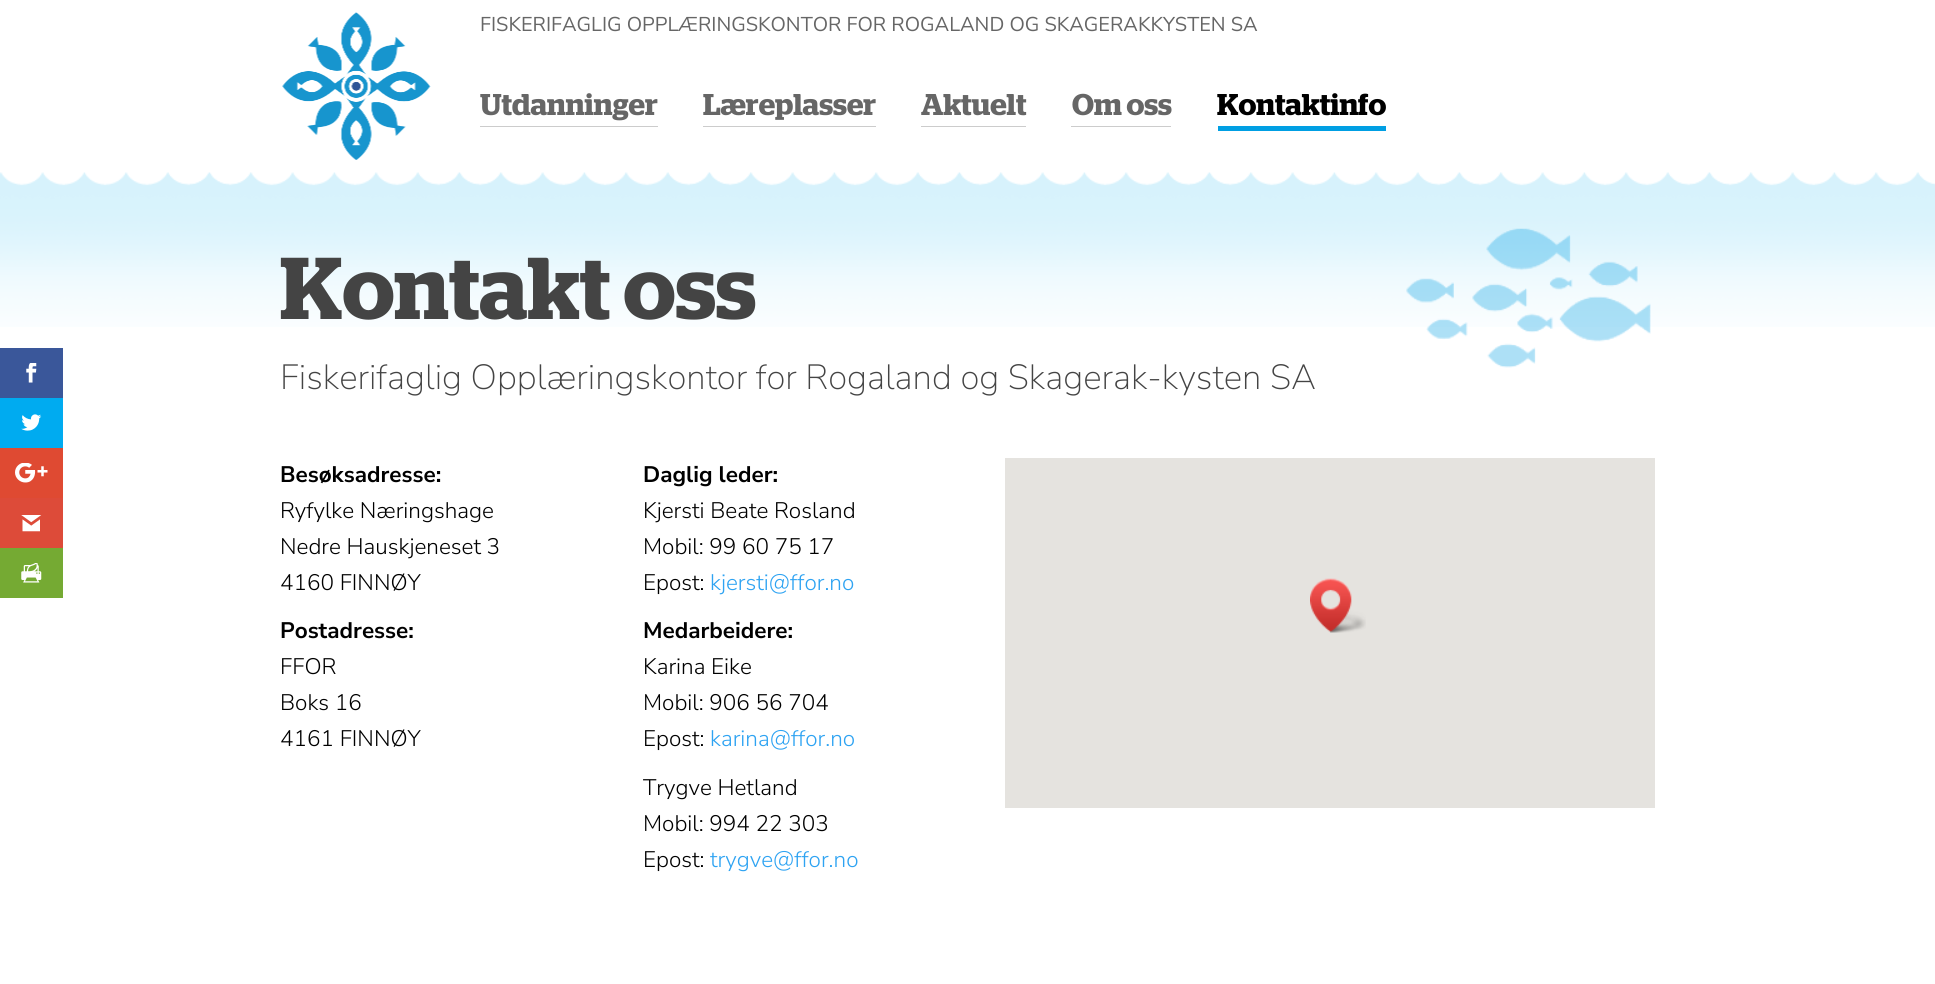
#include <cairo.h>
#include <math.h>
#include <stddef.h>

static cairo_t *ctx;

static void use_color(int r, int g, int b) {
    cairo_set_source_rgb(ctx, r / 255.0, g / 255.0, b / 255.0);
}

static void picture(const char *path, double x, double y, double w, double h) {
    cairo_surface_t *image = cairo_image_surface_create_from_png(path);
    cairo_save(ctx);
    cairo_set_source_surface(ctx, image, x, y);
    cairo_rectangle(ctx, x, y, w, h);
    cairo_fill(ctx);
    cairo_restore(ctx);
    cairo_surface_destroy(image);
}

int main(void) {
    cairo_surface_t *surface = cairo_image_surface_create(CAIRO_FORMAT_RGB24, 1935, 984);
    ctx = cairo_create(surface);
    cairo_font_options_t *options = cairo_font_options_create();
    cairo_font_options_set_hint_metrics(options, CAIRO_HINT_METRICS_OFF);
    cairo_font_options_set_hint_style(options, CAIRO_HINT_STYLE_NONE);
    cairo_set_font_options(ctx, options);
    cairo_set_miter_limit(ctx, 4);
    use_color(255, 255, 255);
    cairo_paint(ctx);
    use_color(58, 87, 154);
    cairo_rectangle(ctx, 0, 348, 63, 50);
    cairo_fill(ctx);
    picture("img1.png", 26, 363, 11, 20);
    use_color(0, 171, 240);
    cairo_rectangle(ctx, 0, 398, 63, 50);
    cairo_fill(ctx);
    picture("img2.png", 21, 414, 21, 17);
    use_color(223, 74, 50);
    cairo_rectangle(ctx, 0, 448, 63, 50);
    cairo_fill(ctx);
    picture("img3.png", 15, 463, 33, 20);
    use_color(221, 75, 57);
    cairo_rectangle(ctx, 0, 498, 63, 50);
    cairo_fill(ctx);
    picture("img4.png", 21, 515, 21, 17);
    use_color(117, 170, 51);
    cairo_rectangle(ctx, 0, 548, 63, 50);
    cairo_fill(ctx);
    picture("img5.png", 21, 563, 21, 20);
    picture("img6.png", 282, 12, 149, 148);
    cairo_select_font_face(ctx, "Nunito Sans", CAIRO_FONT_SLANT_NORMAL, CAIRO_FONT_WEIGHT_NORMAL);
    cairo_set_font_size(ctx, 20);
    use_color(102, 102, 102);
    cairo_move_to(ctx, 480, 31);
    cairo_show_text(ctx, "FISKERIFAGLIG OPPLÆRINGSKONTOR FOR ROGALAND OG SKAGERAKKYSTEN SA");
    use_color(204, 204, 204);
    cairo_rectangle(ctx, 480, 126, 178, 1);
    cairo_fill(ctx);
    cairo_select_font_face(ctx, "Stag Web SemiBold", CAIRO_FONT_SLANT_NORMAL, CAIRO_FONT_WEIGHT_NORMAL);
    cairo_set_font_size(ctx, 30);
    use_color(102, 102, 102);
    cairo_move_to(ctx, 480, 115);
    cairo_show_text(ctx, "Utdanninger");
    use_color(204, 204, 204);
    cairo_rectangle(ctx, 703, 126, 173, 1);
    cairo_fill(ctx);
    use_color(102, 102, 102);
    cairo_move_to(ctx, 703, 115);
    cairo_show_text(ctx, "Læreplasser");
    use_color(204, 204, 204);
    cairo_rectangle(ctx, 921, 126, 105, 1);
    cairo_fill(ctx);
    use_color(102, 102, 102);
    cairo_move_to(ctx, 921, 115);
    cairo_show_text(ctx, "Aktuelt");
    use_color(204, 204, 204);
    cairo_rectangle(ctx, 1071, 126, 100, 1);
    cairo_fill(ctx);
    use_color(102, 102, 102);
    cairo_move_to(ctx, 1072, 115);
    cairo_show_text(ctx, "Om oss");
    use_color(0, 159, 227);
    cairo_rectangle(ctx, 1218, 126, 168, 5);
    cairo_fill(ctx);
    use_color(0, 0, 0);
    cairo_move_to(ctx, 1217, 115);
    cairo_show_text(ctx, "Kontaktinfo");
    picture("img7.png", 0, 172, 1935, 155);
    picture("img8.png", 1406, 228, 245, 140);
    cairo_set_font_size(ctx, 87.5);
    use_color(68, 68, 68);
    cairo_move_to(ctx, 280, 319);
    cairo_show_text(ctx, "Kontakt oss");
    cairo_select_font_face(ctx, "Nunito Sans ExtraLight", CAIRO_FONT_SLANT_NORMAL, CAIRO_FONT_WEIGHT_NORMAL);
    cairo_set_font_size(ctx, 35);
    cairo_move_to(ctx, 280, 389);
    cairo_show_text(ctx, "Fiskerifaglig Opplæringskontor for Rogaland og Skagerak-kysten SA");
    cairo_select_font_face(ctx, "Nunito Sans", CAIRO_FONT_SLANT_NORMAL, CAIRO_FONT_WEIGHT_BOLD);
    cairo_set_font_size(ctx, 22.5);
    use_color(0, 0, 0);
    cairo_move_to(ctx, 280, 482);
    cairo_show_text(ctx, "Besøksadresse:");
    cairo_select_font_face(ctx, "Nunito Sans Light", CAIRO_FONT_SLANT_NORMAL, CAIRO_FONT_WEIGHT_NORMAL);
    cairo_move_to(ctx, 280, 518);
    cairo_show_text(ctx, "Ryfylke Næringshage");
    cairo_move_to(ctx, 280, 554);
    cairo_show_text(ctx, "Nedre Hauskjeneset 3");
    cairo_move_to(ctx, 280, 590);
    cairo_show_text(ctx, "4160 FINNØY");
    cairo_select_font_face(ctx, "Nunito Sans", CAIRO_FONT_SLANT_NORMAL, CAIRO_FONT_WEIGHT_BOLD);
    cairo_move_to(ctx, 280, 638);
    cairo_show_text(ctx, "Postadresse:");
    cairo_select_font_face(ctx, "Nunito Sans Light", CAIRO_FONT_SLANT_NORMAL, CAIRO_FONT_WEIGHT_NORMAL);
    cairo_move_to(ctx, 280, 674);
    cairo_show_text(ctx, "FFOR");
    cairo_move_to(ctx, 280, 710);
    cairo_show_text(ctx, "Boks 16");
    cairo_move_to(ctx, 280, 746);
    cairo_show_text(ctx, "4161 FINNØY");
    cairo_select_font_face(ctx, "Nunito Sans", CAIRO_FONT_SLANT_NORMAL, CAIRO_FONT_WEIGHT_BOLD);
    cairo_move_to(ctx, 643, 482);
    cairo_show_text(ctx, "Daglig leder:");
    cairo_select_font_face(ctx, "Nunito Sans Light", CAIRO_FONT_SLANT_NORMAL, CAIRO_FONT_WEIGHT_NORMAL);
    cairo_move_to(ctx, 643, 518);
    cairo_show_text(ctx, "Kjersti Beate Rosland");
    cairo_move_to(ctx, 643, 554);
    cairo_show_text(ctx, "Mobil: 99 60 75 17");
    cairo_move_to(ctx, 643, 590);
    cairo_show_text(ctx, "Epost:");
    use_color(46, 163, 242);
    cairo_move_to(ctx, 710, 590);
    cairo_show_text(ctx, "kjersti@ffor.no");
    cairo_select_font_face(ctx, "Nunito Sans", CAIRO_FONT_SLANT_NORMAL, CAIRO_FONT_WEIGHT_BOLD);
    use_color(0, 0, 0);
    cairo_move_to(ctx, 643, 638);
    cairo_show_text(ctx, "Medarbeidere:");
    cairo_select_font_face(ctx, "Nunito Sans Light", CAIRO_FONT_SLANT_NORMAL, CAIRO_FONT_WEIGHT_NORMAL);
    cairo_move_to(ctx, 643, 674);
    cairo_show_text(ctx, "Karina Eike");
    cairo_move_to(ctx, 643, 710);
    cairo_show_text(ctx, "Mobil: 906 56 704");
    cairo_move_to(ctx, 643, 746);
    cairo_show_text(ctx, "Epost:");
    use_color(46, 163, 242);
    cairo_move_to(ctx, 710, 746);
    cairo_show_text(ctx, "karina@ffor.no");
    use_color(0, 0, 0);
    cairo_move_to(ctx, 643, 795);
    cairo_show_text(ctx, "Trygve Hetland");
    cairo_move_to(ctx, 643, 831);
    cairo_show_text(ctx, "Mobil: 994 22 303");
    cairo_move_to(ctx, 643, 867);
    cairo_show_text(ctx, "Epost:");
    use_color(46, 163, 242);
    cairo_move_to(ctx, 710, 867);
    cairo_show_text(ctx, "trygve@ffor.no");
    use_color(229, 227, 223);
    cairo_rectangle(ctx, 1005, 458, 650, 350);
    cairo_fill(ctx);
    picture("img9.png", 1310, 578, 56, 55);
    cairo_surface_write_to_png(surface, "result.png");
    cairo_font_options_destroy(options);
    cairo_destroy(ctx);
    cairo_surface_destroy(surface);
    return 0;
}
